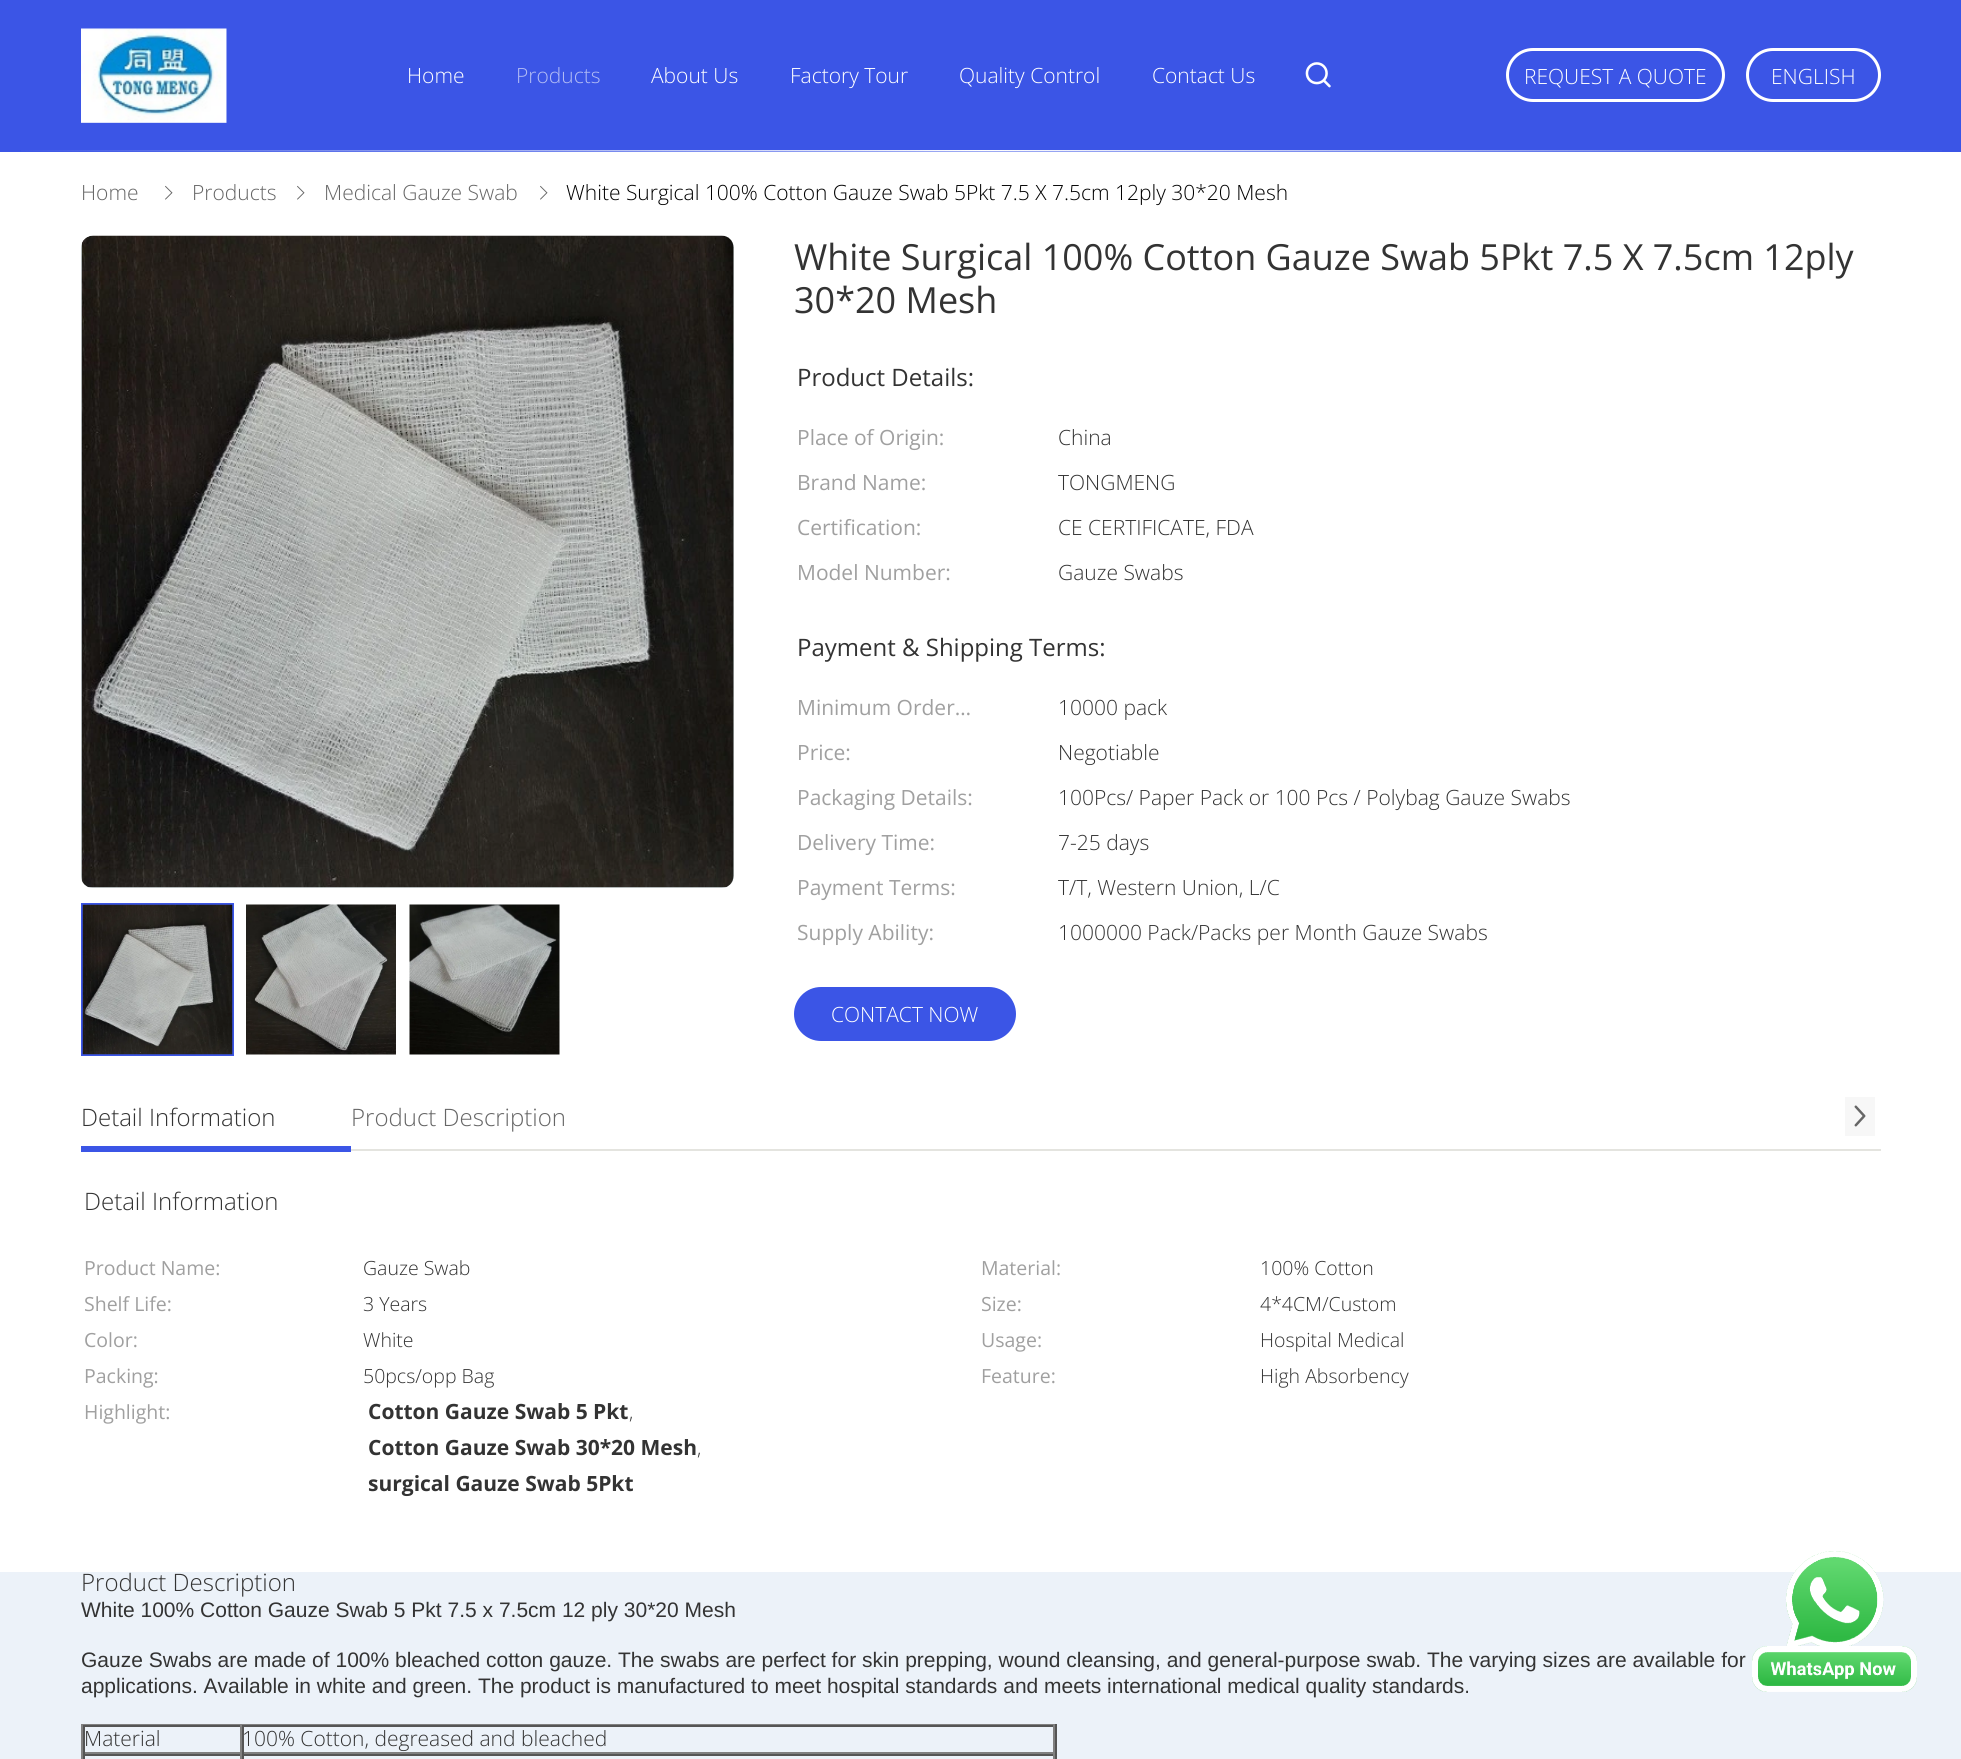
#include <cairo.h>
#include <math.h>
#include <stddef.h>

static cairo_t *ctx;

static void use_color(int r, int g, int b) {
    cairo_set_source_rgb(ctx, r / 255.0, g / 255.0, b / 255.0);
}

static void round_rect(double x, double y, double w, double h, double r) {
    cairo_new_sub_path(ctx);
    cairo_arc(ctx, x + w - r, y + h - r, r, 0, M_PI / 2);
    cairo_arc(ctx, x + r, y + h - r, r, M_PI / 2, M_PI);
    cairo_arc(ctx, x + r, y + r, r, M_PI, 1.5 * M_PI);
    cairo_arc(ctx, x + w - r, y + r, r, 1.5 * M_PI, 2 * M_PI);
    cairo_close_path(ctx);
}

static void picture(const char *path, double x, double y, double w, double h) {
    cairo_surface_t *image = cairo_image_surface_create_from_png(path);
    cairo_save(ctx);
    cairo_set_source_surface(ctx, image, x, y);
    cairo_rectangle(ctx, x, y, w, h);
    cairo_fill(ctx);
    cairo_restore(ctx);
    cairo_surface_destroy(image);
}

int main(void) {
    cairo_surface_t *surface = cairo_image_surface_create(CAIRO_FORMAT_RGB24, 1961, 1759);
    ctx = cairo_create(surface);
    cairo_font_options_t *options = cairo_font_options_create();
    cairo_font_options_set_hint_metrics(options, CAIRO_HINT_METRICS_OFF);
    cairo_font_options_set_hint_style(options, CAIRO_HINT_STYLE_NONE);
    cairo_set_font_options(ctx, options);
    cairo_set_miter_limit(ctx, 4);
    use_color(255, 255, 255);
    cairo_paint(ctx);
    use_color(59, 85, 230);
    cairo_rectangle(ctx, 0, 0, 1961, 152);
    cairo_fill(ctx);
    picture("img1.png", 21, 150, 1921, 2);
    picture("img2.png", 81, 28, 146, 95);
    cairo_select_font_face(ctx, "Open Sans Light", CAIRO_FONT_SLANT_NORMAL, CAIRO_FONT_WEIGHT_NORMAL);
    cairo_set_font_size(ctx, 21);
    use_color(255, 255, 255);
    cairo_move_to(ctx, 407, 83);
    cairo_show_text(ctx, "Home");
    use_color(177, 187, 245);
    cairo_move_to(ctx, 516, 83);
    cairo_show_text(ctx, "Products");
    use_color(255, 255, 255);
    cairo_move_to(ctx, 651, 83);
    cairo_show_text(ctx, "About Us");
    cairo_move_to(ctx, 790, 83);
    cairo_show_text(ctx, "Factory Tour");
    cairo_move_to(ctx, 959, 83);
    cairo_show_text(ctx, "Quality Control");
    cairo_move_to(ctx, 1152, 83);
    cairo_show_text(ctx, "Contact Us");
    picture("img3.png", 1305, 62, 26, 26);
    round_rect(1507.5, 49.5, 216, 51, 25.5);
    cairo_set_line_width(ctx, 3);
    cairo_stroke(ctx);
    cairo_move_to(ctx, 1524, 84);
    cairo_show_text(ctx, "REQUEST A QUOTE");
    round_rect(1747.5, 49.5, 132, 51, 25.5);
    cairo_stroke(ctx);
    cairo_move_to(ctx, 1771, 84);
    cairo_show_text(ctx, "ENGLISH");
    use_color(102, 102, 102);
    cairo_move_to(ctx, 81, 200);
    cairo_show_text(ctx, "Home");
    picture("img4.png", 165, 185, 8, 15);
    cairo_move_to(ctx, 192, 200);
    cairo_show_text(ctx, "Products");
    picture("img4.png", 297, 185, 8, 15);
    cairo_move_to(ctx, 324, 200);
    cairo_show_text(ctx, "Medical Gauze Swab");
    picture("img4.png", 540, 185, 8, 15);
    use_color(0, 0, 0);
    cairo_move_to(ctx, 566, 200);
    cairo_show_text(ctx, "White Surgical 100% Cotton Gauze Swab 5Pkt 7.5 X 7.5cm 12ply 30*20 Mesh");
    use_color(223, 232, 235);
    round_rect(81, 236, 653, 652, 12);
    cairo_fill(ctx);
    picture("img5.png", 81, 235, 653, 653);
    cairo_rectangle(ctx, 82, 904, 151, 151);
    use_color(59, 85, 230);
    cairo_set_line_width(ctx, 2);
    cairo_stroke(ctx);
    picture("img6.png", 82, 904, 151, 151);
    picture("img7.png", 246, 904, 150, 151);
    picture("img8.png", 409, 904, 151, 151);
    cairo_select_font_face(ctx, "Open Sans", CAIRO_FONT_SLANT_NORMAL, CAIRO_FONT_WEIGHT_NORMAL);
    cairo_set_font_size(ctx, 36);
    use_color(51, 51, 51);
    cairo_move_to(ctx, 794, 270);
    cairo_show_text(ctx, "White Surgical 100% Cotton Gauze Swab 5Pkt 7.5 X 7.5cm 12ply");
    cairo_move_to(ctx, 794, 313);
    cairo_show_text(ctx, "30*20 Mesh");
    cairo_set_font_size(ctx, 24);
    cairo_move_to(ctx, 797, 386);
    cairo_show_text(ctx, "Product Details:");
    cairo_set_font_size(ctx, 21);
    use_color(160, 160, 160);
    cairo_move_to(ctx, 797, 445);
    cairo_show_text(ctx, "Place of Origin:");
    cairo_select_font_face(ctx, "Open Sans Light", CAIRO_FONT_SLANT_NORMAL, CAIRO_FONT_WEIGHT_NORMAL);
    use_color(51, 51, 51);
    cairo_move_to(ctx, 1058, 445);
    cairo_show_text(ctx, "China");
    cairo_select_font_face(ctx, "Open Sans", CAIRO_FONT_SLANT_NORMAL, CAIRO_FONT_WEIGHT_NORMAL);
    use_color(160, 160, 160);
    cairo_move_to(ctx, 797, 490);
    cairo_show_text(ctx, "Brand Name:");
    cairo_select_font_face(ctx, "Open Sans Light", CAIRO_FONT_SLANT_NORMAL, CAIRO_FONT_WEIGHT_NORMAL);
    use_color(51, 51, 51);
    cairo_move_to(ctx, 1058, 490);
    cairo_show_text(ctx, "TONGMENG");
    cairo_select_font_face(ctx, "Open Sans", CAIRO_FONT_SLANT_NORMAL, CAIRO_FONT_WEIGHT_NORMAL);
    use_color(160, 160, 160);
    cairo_move_to(ctx, 797, 535);
    cairo_show_text(ctx, "Certification:");
    cairo_select_font_face(ctx, "Open Sans Light", CAIRO_FONT_SLANT_NORMAL, CAIRO_FONT_WEIGHT_NORMAL);
    use_color(51, 51, 51);
    cairo_move_to(ctx, 1058, 535);
    cairo_show_text(ctx, "CE CERTIFICATE, FDA");
    cairo_select_font_face(ctx, "Open Sans", CAIRO_FONT_SLANT_NORMAL, CAIRO_FONT_WEIGHT_NORMAL);
    use_color(160, 160, 160);
    cairo_move_to(ctx, 797, 580);
    cairo_show_text(ctx, "Model Number:");
    cairo_select_font_face(ctx, "Open Sans Light", CAIRO_FONT_SLANT_NORMAL, CAIRO_FONT_WEIGHT_NORMAL);
    use_color(51, 51, 51);
    cairo_move_to(ctx, 1058, 580);
    cairo_show_text(ctx, "Gauze Swabs");
    cairo_select_font_face(ctx, "Open Sans", CAIRO_FONT_SLANT_NORMAL, CAIRO_FONT_WEIGHT_NORMAL);
    cairo_set_font_size(ctx, 24);
    cairo_move_to(ctx, 797, 656);
    cairo_show_text(ctx, "Payment & Shipping Terms:");
    cairo_set_font_size(ctx, 21);
    use_color(160, 160, 160);
    cairo_move_to(ctx, 797, 715);
    cairo_show_text(ctx, "Minimum Order…");
    cairo_select_font_face(ctx, "Open Sans Light", CAIRO_FONT_SLANT_NORMAL, CAIRO_FONT_WEIGHT_NORMAL);
    use_color(51, 51, 51);
    cairo_move_to(ctx, 1058, 715);
    cairo_show_text(ctx, "10000 pack");
    cairo_select_font_face(ctx, "Open Sans", CAIRO_FONT_SLANT_NORMAL, CAIRO_FONT_WEIGHT_NORMAL);
    use_color(160, 160, 160);
    cairo_move_to(ctx, 797, 760);
    cairo_show_text(ctx, "Price:");
    cairo_select_font_face(ctx, "Open Sans Light", CAIRO_FONT_SLANT_NORMAL, CAIRO_FONT_WEIGHT_NORMAL);
    use_color(51, 51, 51);
    cairo_move_to(ctx, 1058, 760);
    cairo_show_text(ctx, "Negotiable");
    cairo_select_font_face(ctx, "Open Sans", CAIRO_FONT_SLANT_NORMAL, CAIRO_FONT_WEIGHT_NORMAL);
    use_color(160, 160, 160);
    cairo_move_to(ctx, 797, 805);
    cairo_show_text(ctx, "Packaging Details:");
    cairo_select_font_face(ctx, "Open Sans Light", CAIRO_FONT_SLANT_NORMAL, CAIRO_FONT_WEIGHT_NORMAL);
    use_color(51, 51, 51);
    cairo_move_to(ctx, 1058, 805);
    cairo_show_text(ctx, "100Pcs/ Paper Pack or 100 Pcs / Polybag Gauze Swabs");
    cairo_select_font_face(ctx, "Open Sans", CAIRO_FONT_SLANT_NORMAL, CAIRO_FONT_WEIGHT_NORMAL);
    use_color(160, 160, 160);
    cairo_move_to(ctx, 797, 850);
    cairo_show_text(ctx, "Delivery Time:");
    cairo_select_font_face(ctx, "Open Sans Light", CAIRO_FONT_SLANT_NORMAL, CAIRO_FONT_WEIGHT_NORMAL);
    use_color(51, 51, 51);
    cairo_move_to(ctx, 1058, 850);
    cairo_show_text(ctx, "7-25 days");
    cairo_select_font_face(ctx, "Open Sans", CAIRO_FONT_SLANT_NORMAL, CAIRO_FONT_WEIGHT_NORMAL);
    use_color(160, 160, 160);
    cairo_move_to(ctx, 797, 895);
    cairo_show_text(ctx, "Payment Terms:");
    cairo_select_font_face(ctx, "Open Sans Light", CAIRO_FONT_SLANT_NORMAL, CAIRO_FONT_WEIGHT_NORMAL);
    use_color(51, 51, 51);
    cairo_move_to(ctx, 1058, 895);
    cairo_show_text(ctx, "T/T, Western Union, L/C");
    cairo_select_font_face(ctx, "Open Sans", CAIRO_FONT_SLANT_NORMAL, CAIRO_FONT_WEIGHT_NORMAL);
    use_color(160, 160, 160);
    cairo_move_to(ctx, 797, 940);
    cairo_show_text(ctx, "Supply Ability:");
    cairo_select_font_face(ctx, "Open Sans Light", CAIRO_FONT_SLANT_NORMAL, CAIRO_FONT_WEIGHT_NORMAL);
    use_color(51, 51, 51);
    cairo_move_to(ctx, 1058, 940);
    cairo_show_text(ctx, "1000000 Pack/Packs per Month Gauze Swabs");
    use_color(59, 85, 230);
    round_rect(794, 987, 222, 54, 27);
    cairo_fill(ctx);
    use_color(255, 255, 255);
    cairo_move_to(ctx, 831, 1022);
    cairo_show_text(ctx, "CONTACT NOW");
    use_color(228, 228, 223);
    cairo_rectangle(ctx, 351, 1149, 1530, 2);
    cairo_fill(ctx);
    cairo_set_font_size(ctx, 24);
    use_color(51, 51, 51);
    cairo_move_to(ctx, 81, 1126);
    cairo_show_text(ctx, "Detail Information");
    use_color(59, 85, 230);
    cairo_rectangle(ctx, 81, 1146, 270, 6);
    cairo_fill(ctx);
    use_color(102, 102, 102);
    cairo_move_to(ctx, 351, 1126);
    cairo_show_text(ctx, "Product Description");
    use_color(247, 247, 247);
    cairo_rectangle(ctx, 1845, 1097, 30, 39);
    cairo_fill(ctx);
    picture("img9.png", 1854, 1105, 12, 22);
    use_color(51, 51, 51);
    cairo_move_to(ctx, 84, 1210);
    cairo_show_text(ctx, "Detail Information");
    cairo_select_font_face(ctx, "Open Sans", CAIRO_FONT_SLANT_NORMAL, CAIRO_FONT_WEIGHT_NORMAL);
    cairo_set_font_size(ctx, 19.5);
    use_color(160, 160, 160);
    cairo_move_to(ctx, 84, 1275);
    cairo_show_text(ctx, "Product Name:");
    cairo_select_font_face(ctx, "Open Sans Light", CAIRO_FONT_SLANT_NORMAL, CAIRO_FONT_WEIGHT_NORMAL);
    use_color(51, 51, 51);
    cairo_move_to(ctx, 363, 1275);
    cairo_show_text(ctx, "Gauze Swab");
    cairo_select_font_face(ctx, "Open Sans", CAIRO_FONT_SLANT_NORMAL, CAIRO_FONT_WEIGHT_NORMAL);
    use_color(160, 160, 160);
    cairo_move_to(ctx, 981, 1275);
    cairo_show_text(ctx, "Material:");
    cairo_select_font_face(ctx, "Open Sans Light", CAIRO_FONT_SLANT_NORMAL, CAIRO_FONT_WEIGHT_NORMAL);
    use_color(51, 51, 51);
    cairo_move_to(ctx, 1260, 1275);
    cairo_show_text(ctx, "100% Cotton");
    cairo_select_font_face(ctx, "Open Sans", CAIRO_FONT_SLANT_NORMAL, CAIRO_FONT_WEIGHT_NORMAL);
    use_color(160, 160, 160);
    cairo_move_to(ctx, 84, 1311);
    cairo_show_text(ctx, "Shelf Life:");
    cairo_select_font_face(ctx, "Open Sans Light", CAIRO_FONT_SLANT_NORMAL, CAIRO_FONT_WEIGHT_NORMAL);
    use_color(51, 51, 51);
    cairo_move_to(ctx, 363, 1311);
    cairo_show_text(ctx, "3 Years");
    cairo_select_font_face(ctx, "Open Sans", CAIRO_FONT_SLANT_NORMAL, CAIRO_FONT_WEIGHT_NORMAL);
    use_color(160, 160, 160);
    cairo_move_to(ctx, 981, 1311);
    cairo_show_text(ctx, "Size:");
    cairo_select_font_face(ctx, "Open Sans Light", CAIRO_FONT_SLANT_NORMAL, CAIRO_FONT_WEIGHT_NORMAL);
    use_color(51, 51, 51);
    cairo_move_to(ctx, 1260, 1311);
    cairo_show_text(ctx, "4*4CM/Custom");
    cairo_select_font_face(ctx, "Open Sans", CAIRO_FONT_SLANT_NORMAL, CAIRO_FONT_WEIGHT_NORMAL);
    use_color(160, 160, 160);
    cairo_move_to(ctx, 84, 1347);
    cairo_show_text(ctx, "Color:");
    cairo_select_font_face(ctx, "Open Sans Light", CAIRO_FONT_SLANT_NORMAL, CAIRO_FONT_WEIGHT_NORMAL);
    use_color(51, 51, 51);
    cairo_move_to(ctx, 363, 1347);
    cairo_show_text(ctx, "White");
    cairo_select_font_face(ctx, "Open Sans", CAIRO_FONT_SLANT_NORMAL, CAIRO_FONT_WEIGHT_NORMAL);
    use_color(160, 160, 160);
    cairo_move_to(ctx, 981, 1347);
    cairo_show_text(ctx, "Usage:");
    cairo_select_font_face(ctx, "Open Sans Light", CAIRO_FONT_SLANT_NORMAL, CAIRO_FONT_WEIGHT_NORMAL);
    use_color(51, 51, 51);
    cairo_move_to(ctx, 1260, 1347);
    cairo_show_text(ctx, "Hospital Medical");
    cairo_select_font_face(ctx, "Open Sans", CAIRO_FONT_SLANT_NORMAL, CAIRO_FONT_WEIGHT_NORMAL);
    use_color(160, 160, 160);
    cairo_move_to(ctx, 84, 1383);
    cairo_show_text(ctx, "Packing:");
    cairo_select_font_face(ctx, "Open Sans Light", CAIRO_FONT_SLANT_NORMAL, CAIRO_FONT_WEIGHT_NORMAL);
    use_color(51, 51, 51);
    cairo_move_to(ctx, 363, 1383);
    cairo_show_text(ctx, "50pcs/opp Bag");
    cairo_select_font_face(ctx, "Open Sans", CAIRO_FONT_SLANT_NORMAL, CAIRO_FONT_WEIGHT_NORMAL);
    use_color(160, 160, 160);
    cairo_move_to(ctx, 981, 1383);
    cairo_show_text(ctx, "Feature:");
    cairo_select_font_face(ctx, "Open Sans Light", CAIRO_FONT_SLANT_NORMAL, CAIRO_FONT_WEIGHT_NORMAL);
    use_color(51, 51, 51);
    cairo_move_to(ctx, 1260, 1383);
    cairo_show_text(ctx, "High Absorbency");
    cairo_select_font_face(ctx, "Open Sans", CAIRO_FONT_SLANT_NORMAL, CAIRO_FONT_WEIGHT_NORMAL);
    use_color(160, 160, 160);
    cairo_move_to(ctx, 84, 1419);
    cairo_show_text(ctx, "Highlight:");
    cairo_select_font_face(ctx, "Open Sans", CAIRO_FONT_SLANT_NORMAL, CAIRO_FONT_WEIGHT_BOLD);
    cairo_set_font_size(ctx, 21);
    use_color(51, 51, 51);
    cairo_move_to(ctx, 368, 1419);
    cairo_show_text(ctx, "Cotton Gauze Swab 5 Pkt");
    cairo_select_font_face(ctx, "Open Sans Light", CAIRO_FONT_SLANT_NORMAL, CAIRO_FONT_WEIGHT_NORMAL);
    cairo_set_font_size(ctx, 19.5);
    cairo_move_to(ctx, 629, 1419);
    cairo_show_text(ctx, ",");
    cairo_select_font_face(ctx, "Open Sans", CAIRO_FONT_SLANT_NORMAL, CAIRO_FONT_WEIGHT_BOLD);
    cairo_set_font_size(ctx, 21);
    cairo_move_to(ctx, 368, 1455);
    cairo_show_text(ctx, "Cotton Gauze Swab 30*20 Mesh");
    cairo_select_font_face(ctx, "Open Sans Light", CAIRO_FONT_SLANT_NORMAL, CAIRO_FONT_WEIGHT_NORMAL);
    cairo_set_font_size(ctx, 19.5);
    cairo_move_to(ctx, 697, 1455);
    cairo_show_text(ctx, ",");
    cairo_select_font_face(ctx, "Open Sans", CAIRO_FONT_SLANT_NORMAL, CAIRO_FONT_WEIGHT_BOLD);
    cairo_set_font_size(ctx, 21);
    cairo_move_to(ctx, 368, 1491);
    cairo_show_text(ctx, "surgical Gauze Swab 5Pkt");
    use_color(236, 242, 249);
    cairo_rectangle(ctx, 0, 1572, 1961, 187);
    cairo_fill(ctx);
    cairo_select_font_face(ctx, "Open Sans Light", CAIRO_FONT_SLANT_NORMAL, CAIRO_FONT_WEIGHT_NORMAL);
    cairo_set_font_size(ctx, 24);
    use_color(51, 51, 51);
    cairo_move_to(ctx, 81, 1591);
    cairo_show_text(ctx, "Product Description");
    cairo_select_font_face(ctx, "Liberation Sans", CAIRO_FONT_SLANT_NORMAL, CAIRO_FONT_WEIGHT_NORMAL);
    cairo_set_font_size(ctx, 21);
    cairo_move_to(ctx, 81, 1617);
    cairo_show_text(ctx, "White 100% Cotton Gauze Swab 5 Pkt 7.5 x 7.5cm 12 ply 30*20 Mesh");
    cairo_move_to(ctx, 81, 1667);
    cairo_show_text(ctx, "Gauze Swabs are made of 100% bleached cotton gauze. The swabs are perfect for skin prepping, wound cleansing, and general-purpose swab. The varying sizes are available for");
    cairo_move_to(ctx, 81, 1693);
    cairo_show_text(ctx, "applications. Available in white and green. The product is manufactured to meet hospital standards and meets international medical quality standards.");
    use_color(128, 128, 128);
    cairo_rectangle(ctx, 81, 1724, 975, 1);
    cairo_fill(ctx);
    use_color(85, 85, 85);
    cairo_rectangle(ctx, 1055, 1724, 2, 35);
    cairo_fill(ctx);
    use_color(128, 128, 128);
    cairo_rectangle(ctx, 81, 1724, 2, 35);
    cairo_fill(ctx);
    use_color(85, 85, 85);
    cairo_rectangle(ctx, 83, 1725, 972, 2);
    cairo_fill(ctx);
    use_color(128, 128, 128);
    cairo_rectangle(ctx, 240, 1725, 2, 29);
    cairo_fill(ctx);
    cairo_rectangle(ctx, 83, 1752, 159, 2);
    cairo_fill(ctx);
    use_color(85, 85, 85);
    cairo_rectangle(ctx, 83, 1725, 2, 29);
    cairo_fill(ctx);
    cairo_select_font_face(ctx, "Open Sans Light", CAIRO_FONT_SLANT_NORMAL, CAIRO_FONT_WEIGHT_NORMAL);
    use_color(51, 51, 51);
    cairo_move_to(ctx, 84, 1746);
    cairo_show_text(ctx, "Material");
    use_color(128, 128, 128);
    cairo_rectangle(ctx, 1053, 1725, 2, 29);
    cairo_fill(ctx);
    cairo_rectangle(ctx, 242, 1752, 813, 2);
    cairo_fill(ctx);
    use_color(85, 85, 85);
    cairo_rectangle(ctx, 242, 1725, 2, 29);
    cairo_fill(ctx);
    use_color(51, 51, 51);
    cairo_move_to(ctx, 242, 1746);
    cairo_show_text(ctx, "100% Cotton, degreased and bleached");
    use_color(85, 85, 85);
    cairo_rectangle(ctx, 83, 1754, 972, 2);
    cairo_fill(ctx);
    use_color(128, 128, 128);
    cairo_rectangle(ctx, 240, 1754, 2, 5);
    cairo_fill(ctx);
    use_color(85, 85, 85);
    cairo_rectangle(ctx, 83, 1754, 2, 5);
    cairo_fill(ctx);
    use_color(128, 128, 128);
    cairo_rectangle(ctx, 1053, 1754, 2, 5);
    cairo_fill(ctx);
    use_color(85, 85, 85);
    cairo_rectangle(ctx, 242, 1754, 2, 5);
    cairo_fill(ctx);
    picture("img10.png", 1752, 1551, 165, 141);
    cairo_surface_write_to_png(surface, "result.png");
    cairo_font_options_destroy(options);
    cairo_destroy(ctx);
    cairo_surface_destroy(surface);
    return 0;
}
